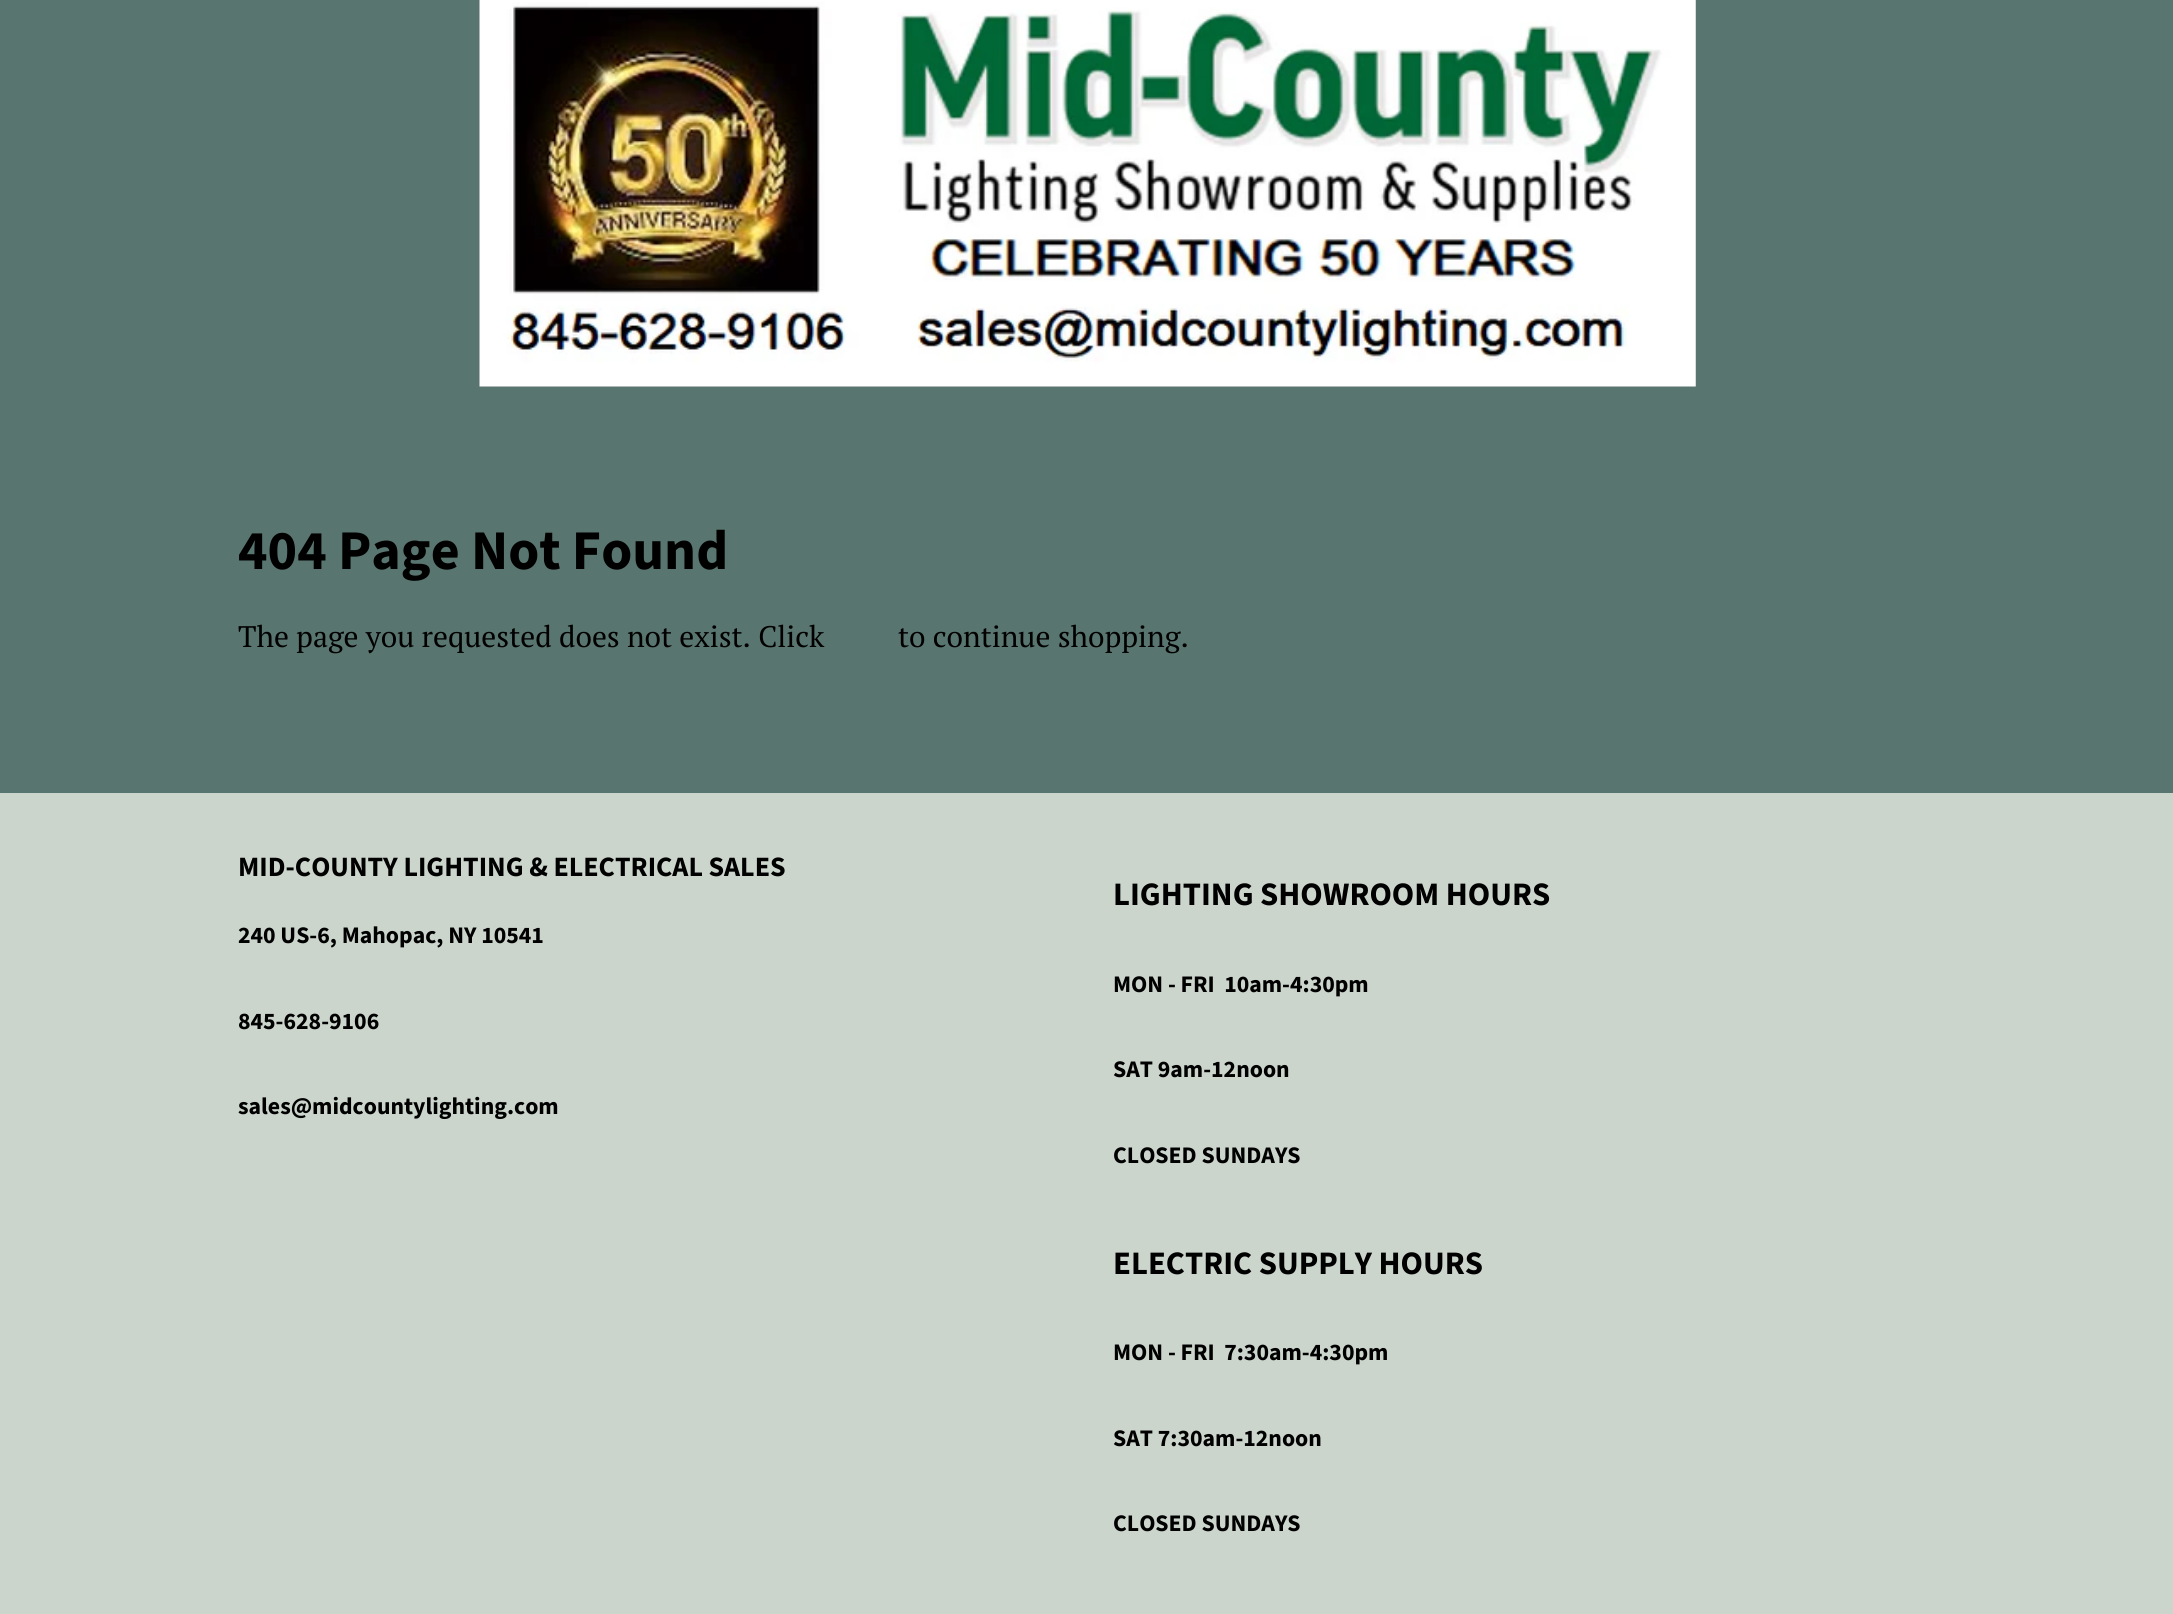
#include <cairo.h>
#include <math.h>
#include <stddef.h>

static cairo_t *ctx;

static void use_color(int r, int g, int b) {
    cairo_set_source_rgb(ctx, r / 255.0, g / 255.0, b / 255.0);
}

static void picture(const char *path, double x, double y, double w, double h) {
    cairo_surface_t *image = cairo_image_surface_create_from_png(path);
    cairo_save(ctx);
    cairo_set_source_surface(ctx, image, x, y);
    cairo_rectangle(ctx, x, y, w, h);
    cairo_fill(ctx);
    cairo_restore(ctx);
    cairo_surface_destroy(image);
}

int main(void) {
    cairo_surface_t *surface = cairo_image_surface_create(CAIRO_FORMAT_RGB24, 2173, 1614);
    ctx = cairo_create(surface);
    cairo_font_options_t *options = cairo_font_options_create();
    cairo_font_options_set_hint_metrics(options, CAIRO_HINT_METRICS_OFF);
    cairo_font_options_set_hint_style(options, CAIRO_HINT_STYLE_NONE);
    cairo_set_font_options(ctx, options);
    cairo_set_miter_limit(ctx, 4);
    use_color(89, 117, 111);
    cairo_paint(ctx);
    picture("img1.png", 479, 0, 1217, 387);
    cairo_select_font_face(ctx, "Source Sans Pro", CAIRO_FONT_SLANT_NORMAL, CAIRO_FONT_WEIGHT_BOLD);
    cairo_set_font_size(ctx, 56);
    use_color(0, 0, 0);
    cairo_move_to(ctx, 238, 569);
    cairo_show_text(ctx, "404 Page Not Found");
    cairo_select_font_face(ctx, "PT Serif", CAIRO_FONT_SLANT_NORMAL, CAIRO_FONT_WEIGHT_NORMAL);
    cairo_set_font_size(ctx, 29.75);
    cairo_move_to(ctx, 238, 647);
    cairo_show_text(ctx, "The page you requested does not exist. Click");
    cairo_move_to(ctx, 898, 647);
    cairo_show_text(ctx, "to continue shopping.");
    use_color(203, 213, 204);
    cairo_rectangle(ctx, 0, 793, 2173, 821);
    cairo_fill(ctx);
    cairo_select_font_face(ctx, "Source Sans Pro", CAIRO_FONT_SLANT_NORMAL, CAIRO_FONT_WEIGHT_BOLD);
    cairo_set_font_size(ctx, 28);
    use_color(0, 0, 0);
    cairo_move_to(ctx, 238, 876);
    cairo_show_text(ctx, "MID-COUNTY LIGHTING & ELECTRICAL SALES");
    cairo_set_font_size(ctx, 23.75);
    cairo_move_to(ctx, 238, 943);
    cairo_show_text(ctx, "240 US-6, Mahopac, NY 10541");
    cairo_move_to(ctx, 238, 1029);
    cairo_show_text(ctx, "845-628-9106");
    cairo_move_to(ctx, 238, 1114);
    cairo_show_text(ctx, "sales@midcountylighting.com");
    cairo_set_font_size(ctx, 32.75);
    cairo_move_to(ctx, 1113, 905);
    cairo_show_text(ctx, "LIGHTING SHOWROOM HOURS");
    cairo_set_font_size(ctx, 23.75);
    cairo_move_to(ctx, 1113, 992);
    cairo_show_text(ctx, "MON - FRI  10am-4:30pm");
    cairo_move_to(ctx, 1113, 1077);
    cairo_show_text(ctx, "SAT 9am-12noon");
    cairo_move_to(ctx, 1113, 1163);
    cairo_show_text(ctx, "CLOSED SUNDAYS");
    cairo_set_font_size(ctx, 32.75);
    cairo_move_to(ctx, 1113, 1274);
    cairo_show_text(ctx, "ELECTRIC SUPPLY HOURS");
    cairo_set_font_size(ctx, 23.75);
    cairo_move_to(ctx, 1113, 1360);
    cairo_show_text(ctx, "MON - FRI  7:30am-4:30pm");
    cairo_move_to(ctx, 1113, 1446);
    cairo_show_text(ctx, "SAT 7:30am-12noon");
    cairo_move_to(ctx, 1113, 1531);
    cairo_show_text(ctx, "CLOSED SUNDAYS");
    cairo_surface_write_to_png(surface, "result.png");
    cairo_font_options_destroy(options);
    cairo_destroy(ctx);
    cairo_surface_destroy(surface);
    return 0;
}
